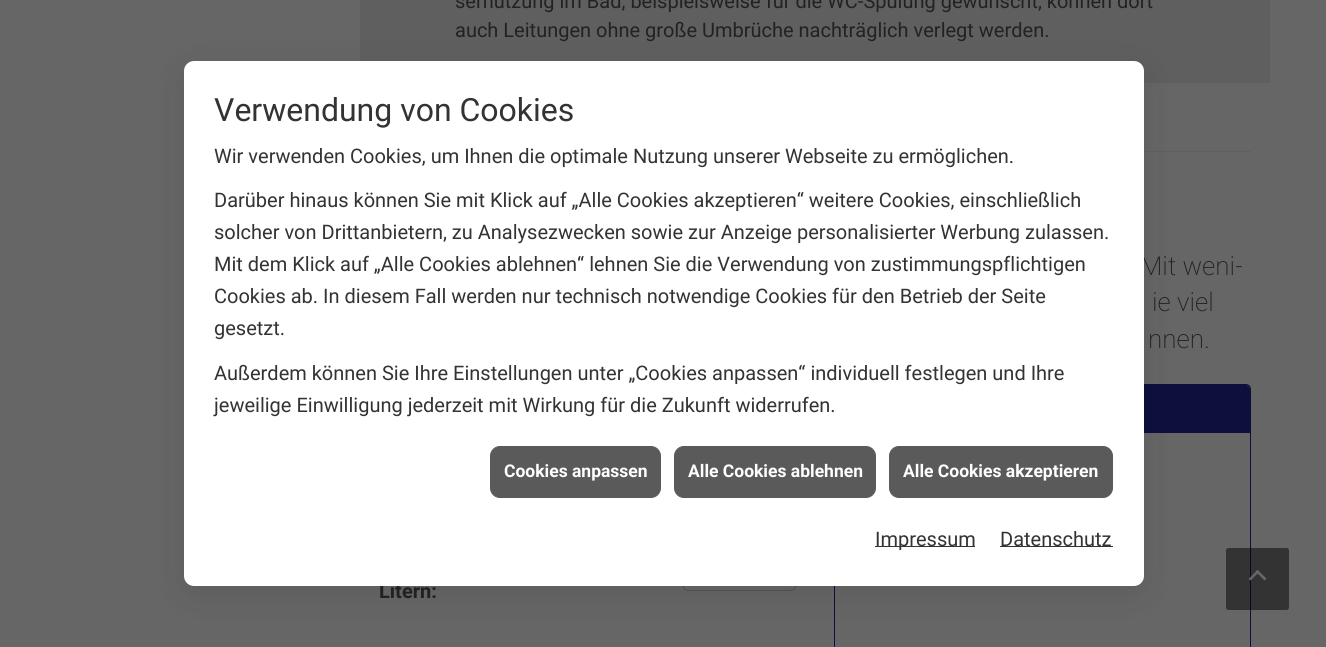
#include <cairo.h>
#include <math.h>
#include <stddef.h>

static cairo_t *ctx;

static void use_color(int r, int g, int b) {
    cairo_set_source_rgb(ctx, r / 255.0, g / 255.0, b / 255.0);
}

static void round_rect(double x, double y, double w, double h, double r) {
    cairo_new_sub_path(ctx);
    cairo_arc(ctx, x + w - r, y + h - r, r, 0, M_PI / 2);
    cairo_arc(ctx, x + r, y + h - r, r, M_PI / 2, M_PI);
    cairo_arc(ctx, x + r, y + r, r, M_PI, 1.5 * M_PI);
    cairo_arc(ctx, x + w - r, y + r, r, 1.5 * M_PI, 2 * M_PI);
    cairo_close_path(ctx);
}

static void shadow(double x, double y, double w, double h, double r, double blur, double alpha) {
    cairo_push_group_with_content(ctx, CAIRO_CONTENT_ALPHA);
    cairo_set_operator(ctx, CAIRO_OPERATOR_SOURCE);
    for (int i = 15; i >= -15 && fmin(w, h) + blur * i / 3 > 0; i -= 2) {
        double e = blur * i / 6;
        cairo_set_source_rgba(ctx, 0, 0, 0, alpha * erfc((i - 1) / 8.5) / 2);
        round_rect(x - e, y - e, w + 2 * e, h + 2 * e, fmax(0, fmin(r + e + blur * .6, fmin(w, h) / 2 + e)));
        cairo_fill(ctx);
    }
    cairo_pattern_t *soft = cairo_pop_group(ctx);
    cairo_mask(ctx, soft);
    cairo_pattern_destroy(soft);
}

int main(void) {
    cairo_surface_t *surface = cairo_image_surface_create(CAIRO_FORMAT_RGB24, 1326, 647);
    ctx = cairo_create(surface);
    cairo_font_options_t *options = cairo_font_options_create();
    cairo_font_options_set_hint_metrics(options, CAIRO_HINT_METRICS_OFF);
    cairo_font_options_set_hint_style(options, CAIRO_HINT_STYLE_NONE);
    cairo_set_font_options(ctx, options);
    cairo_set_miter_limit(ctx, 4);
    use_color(102, 102, 102);
    cairo_paint(ctx);
    use_color(95, 95, 95);
    cairo_rectangle(ctx, 360, 0, 910, 83);
    cairo_fill(ctx);
    cairo_select_font_face(ctx, "Roboto", CAIRO_FONT_SLANT_NORMAL, CAIRO_FONT_WEIGHT_NORMAL);
    cairo_set_font_size(ctx, 20);
    use_color(34, 34, 34);
    cairo_move_to(ctx, 455, 8);
    cairo_show_text(ctx, "sernutzung im Bad, beispielsweise für die WC-Spülung gewünscht, können dort");
    cairo_move_to(ctx, 455, 37);
    cairo_show_text(ctx, "auch Leitungen ohne große Umbrüche nachträglich verlegt werden.");
    use_color(95, 95, 95);
    cairo_rectangle(ctx, 1144, 151, 107, 1);
    cairo_fill(ctx);
    cairo_select_font_face(ctx, "Roboto ExtraLight", CAIRO_FONT_SLANT_NORMAL, CAIRO_FONT_WEIGHT_NORMAL);
    cairo_set_font_size(ctx, 26);
    use_color(34, 34, 34);
    cairo_move_to(ctx, 1140, 275);
    cairo_show_text(ctx, "Mit weni-");
    cairo_move_to(ctx, 1152, 311);
    cairo_show_text(ctx, "ie viel");
    cairo_move_to(ctx, 1148, 348);
    cairo_show_text(ctx, "nnen.");
    cairo_select_font_face(ctx, "Roboto", CAIRO_FONT_SLANT_NORMAL, CAIRO_FONT_WEIGHT_BOLD);
    cairo_set_font_size(ctx, 20);
    cairo_move_to(ctx, 379, 598);
    cairo_show_text(ctx, "Litern:");
    round_rect(683.5, 549.5, 112, 41, 4.5);
    use_color(82, 82, 82);
    cairo_set_line_width(ctx, 1);
    cairo_stroke(ctx);
    round_rect(834.5, 384.5, 416, 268, 4.5);
    use_color(14, 15, 61);
    cairo_stroke(ctx);
    cairo_new_path(ctx);
    cairo_move_to(ctx, 839, 385);
    cairo_line_to(ctx, 1246, 385);
    cairo_curve_to(ctx, 1248, 385, 1250, 387, 1250, 389);
    cairo_line_to(ctx, 1250, 433);
    cairo_line_to(ctx, 835, 433);
    cairo_line_to(ctx, 835, 389);
    cairo_curve_to(ctx, 835, 387, 837, 385, 839, 385);
    cairo_close_path(ctx);
    cairo_fill(ctx);
    use_color(0, 0, 0);
    shadow(184, 69, 960, 525, 10, 17.5, 0.1);
    use_color(255, 255, 255);
    round_rect(184, 61, 960, 525, 10);
    cairo_fill(ctx);
    cairo_select_font_face(ctx, "Roboto", CAIRO_FONT_SLANT_NORMAL, CAIRO_FONT_WEIGHT_NORMAL);
    cairo_set_font_size(ctx, 32);
    use_color(51, 51, 51);
    cairo_move_to(ctx, 214, 121);
    cairo_show_text(ctx, "Verwendung von Cookies");
    cairo_set_font_size(ctx, 20);
    cairo_move_to(ctx, 214, 163);
    cairo_show_text(ctx, "Wir verwenden Cookies, um Ihnen die optimale Nutzung unserer Webseite zu ermöglichen.");
    cairo_move_to(ctx, 214, 207);
    cairo_show_text(ctx, "Darüber hinaus können Sie mit Klick auf „Alle Cookies akzeptieren“ weitere Cookies, einschließlich");
    cairo_move_to(ctx, 214, 239);
    cairo_show_text(ctx, "solcher von Drittanbietern, zu Analysezwecken sowie zur Anzeige personalisierter Werbung zulassen.");
    cairo_move_to(ctx, 214, 271);
    cairo_show_text(ctx, "Mit dem Klick auf „Alle Cookies ablehnen“ lehnen Sie die Verwendung von zustimmungspflichtigen");
    cairo_move_to(ctx, 214, 303);
    cairo_show_text(ctx, "Cookies ab. In diesem Fall werden nur technisch notwendige Cookies für den Betrieb der Seite");
    cairo_move_to(ctx, 214, 335);
    cairo_show_text(ctx, "gesetzt.");
    cairo_move_to(ctx, 214, 380);
    cairo_show_text(ctx, "Außerdem können Sie Ihre Einstellungen unter „Cookies anpassen“ individuell festlegen und Ihre");
    cairo_move_to(ctx, 214, 412);
    cairo_show_text(ctx, "jeweilige Einwilligung jederzeit mit Wirkung für die Zukunft widerrufen.");
    use_color(90, 90, 90);
    round_rect(490.5, 446.5, 170, 51, 9.5);
    cairo_fill_preserve(ctx);
    cairo_stroke(ctx);
    cairo_select_font_face(ctx, "Roboto", CAIRO_FONT_SLANT_NORMAL, CAIRO_FONT_WEIGHT_BOLD);
    cairo_set_font_size(ctx, 17.5);
    use_color(255, 255, 255);
    cairo_move_to(ctx, 504, 477);
    cairo_show_text(ctx, "Cookies anpassen");
    use_color(90, 90, 90);
    round_rect(674.5, 446.5, 201, 51, 9.5);
    cairo_fill_preserve(ctx);
    cairo_stroke(ctx);
    use_color(255, 255, 255);
    cairo_move_to(ctx, 688, 477);
    cairo_show_text(ctx, "Alle Cookies ablehnen");
    use_color(90, 90, 90);
    round_rect(889.5, 446.5, 223, 51, 9.5);
    cairo_fill_preserve(ctx);
    cairo_stroke(ctx);
    use_color(255, 255, 255);
    cairo_move_to(ctx, 903, 477);
    cairo_show_text(ctx, "Alle Cookies akzeptieren");
    use_color(51, 51, 51);
    cairo_rectangle(ctx, 875, 546, 100, 1);
    cairo_fill(ctx);
    cairo_select_font_face(ctx, "Roboto", CAIRO_FONT_SLANT_NORMAL, CAIRO_FONT_WEIGHT_NORMAL);
    cairo_set_font_size(ctx, 20);
    cairo_move_to(ctx, 875, 546);
    cairo_show_text(ctx, "Impressum");
    cairo_rectangle(ctx, 1000, 546, 113, 1);
    cairo_fill(ctx);
    cairo_move_to(ctx, 1000, 546);
    cairo_show_text(ctx, "Datenschutz");
    cairo_set_source_rgba(ctx, 0, 0, 0, 0.5);
    round_rect(1226, 548, 63, 62, 2.5);
    cairo_fill(ctx);
    use_color(102, 102, 102);
    cairo_new_path(ctx);
    cairo_move_to(ctx, 1257.5, 570);
    cairo_line_to(ctx, 1266.5, 578.5);
    cairo_line_to(ctx, 1264.5, 580.5);
    cairo_line_to(ctx, 1255.5, 571.5);
    cairo_close_path(ctx);
    cairo_fill(ctx);
    cairo_new_path(ctx);
    cairo_move_to(ctx, 1257.5, 570);
    cairo_line_to(ctx, 1259.5, 571.5);
    cairo_line_to(ctx, 1250.5, 580.5);
    cairo_line_to(ctx, 1248.5, 579);
    cairo_close_path(ctx);
    cairo_fill(ctx);
    cairo_surface_write_to_png(surface, "result.png");
    cairo_font_options_destroy(options);
    cairo_destroy(ctx);
    cairo_surface_destroy(surface);
    return 0;
}
